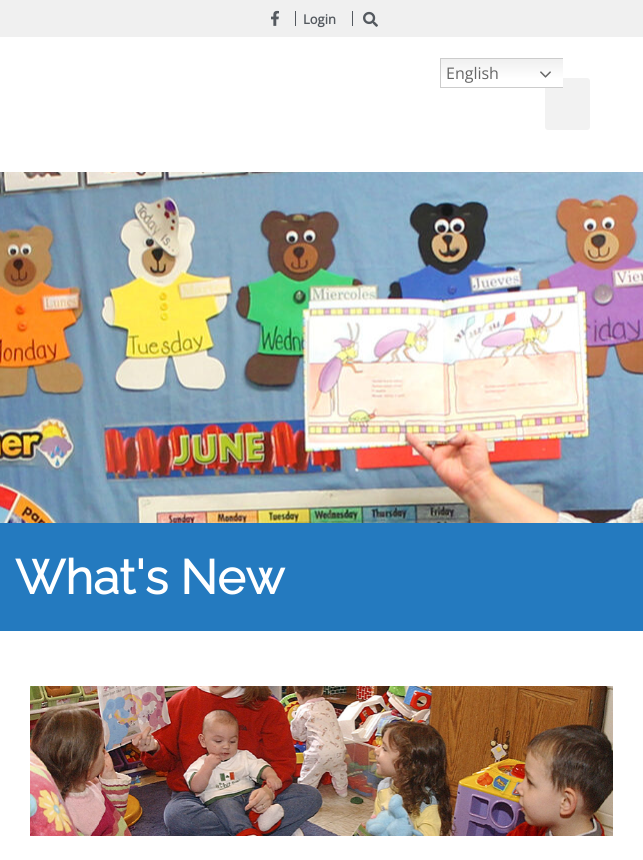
#include <cairo.h>
#include <math.h>
#include <stddef.h>

static cairo_t *ctx;

static void use_color(int r, int g, int b) {
    cairo_set_source_rgb(ctx, r / 255.0, g / 255.0, b / 255.0);
}

static void round_rect(double x, double y, double w, double h, double r) {
    cairo_new_sub_path(ctx);
    cairo_arc(ctx, x + w - r, y + h - r, r, 0, M_PI / 2);
    cairo_arc(ctx, x + r, y + h - r, r, M_PI / 2, M_PI);
    cairo_arc(ctx, x + r, y + r, r, M_PI, 1.5 * M_PI);
    cairo_arc(ctx, x + w - r, y + r, r, 1.5 * M_PI, 2 * M_PI);
    cairo_close_path(ctx);
}

static void picture(const char *path, double x, double y, double w, double h) {
    cairo_surface_t *image = cairo_image_surface_create_from_png(path);
    cairo_save(ctx);
    cairo_set_source_surface(ctx, image, x, y);
    cairo_rectangle(ctx, x, y, w, h);
    cairo_fill(ctx);
    cairo_restore(ctx);
    cairo_surface_destroy(image);
}

int main(void) {
    cairo_surface_t *surface = cairo_image_surface_create(CAIRO_FORMAT_RGB24, 643, 860);
    ctx = cairo_create(surface);
    cairo_font_options_t *options = cairo_font_options_create();
    cairo_font_options_set_hint_metrics(options, CAIRO_HINT_METRICS_OFF);
    cairo_font_options_set_hint_style(options, CAIRO_HINT_STYLE_NONE);
    cairo_set_font_options(ctx, options);
    cairo_set_miter_limit(ctx, 4);
    cairo_pattern_t *gradient;
    use_color(255, 255, 255);
    cairo_paint(ctx);
    use_color(240, 240, 240);
    cairo_rectangle(ctx, 0, 0, 643, 37);
    cairo_fill(ctx);
    picture("img1.png", 271, 10, 8, 16);
    use_color(84, 89, 95);
    cairo_rectangle(ctx, 295, 11, 1, 15);
    cairo_fill(ctx);
    cairo_select_font_face(ctx, "Open Sans", CAIRO_FONT_SLANT_NORMAL, CAIRO_FONT_WEIGHT_BOLD);
    cairo_set_font_size(ctx, 13);
    cairo_move_to(ctx, 303, 24);
    cairo_show_text(ctx, "Login");
    cairo_rectangle(ctx, 352, 11, 1, 15);
    cairo_fill(ctx);
    picture("img2.png", 363, 11, 15, 16);
    use_color(242, 242, 242);
    round_rect(545, 78, 45, 52, 3);
    cairo_fill(ctx);
    picture("img3.png", 0, 172, 643, 351);
    use_color(36, 122, 191);
    cairo_rectangle(ctx, 0, 523, 643, 108);
    cairo_fill(ctx);
    cairo_select_font_face(ctx, "Raleway", CAIRO_FONT_SLANT_NORMAL, CAIRO_FONT_WEIGHT_BOLD);
    cairo_set_font_size(ctx, 48);
    use_color(255, 255, 255);
    cairo_move_to(ctx, 15, 594);
    cairo_show_text(ctx, "What's New");
    picture("img4.png", 30, 686, 583, 150);
    gradient = cairo_pattern_create_linear(502, 58, 502, 88);
    cairo_pattern_add_color_stop_rgba(gradient, 0, 0.937, 0.937, 0.937, 1);
    cairo_pattern_add_color_stop_rgba(gradient, 0.7, 1, 1, 1, 1);
    cairo_set_source(ctx, gradient);
    cairo_pattern_destroy(gradient);
    cairo_rectangle(ctx, 441, 59, 122, 28);
    cairo_fill(ctx);
    cairo_save(ctx);
    cairo_rectangle(ctx, 440, 58, 123, 30);
    cairo_clip(ctx);
    cairo_rectangle(ctx, 440.5, 58.5, 172, 29);
    use_color(204, 204, 204);
    cairo_set_line_width(ctx, 1);
    cairo_stroke(ctx);
    cairo_restore(ctx);
    cairo_select_font_face(ctx, "Open Sans", CAIRO_FONT_SLANT_NORMAL, CAIRO_FONT_WEIGHT_NORMAL);
    cairo_set_font_size(ctx, 16);
    use_color(102, 102, 102);
    cairo_move_to(ctx, 446, 79);
    cairo_show_text(ctx, "English");
    picture("img5.png", 540, 71, 11, 7);
    cairo_surface_write_to_png(surface, "result.png");
    cairo_font_options_destroy(options);
    cairo_destroy(ctx);
    cairo_surface_destroy(surface);
    return 0;
}
